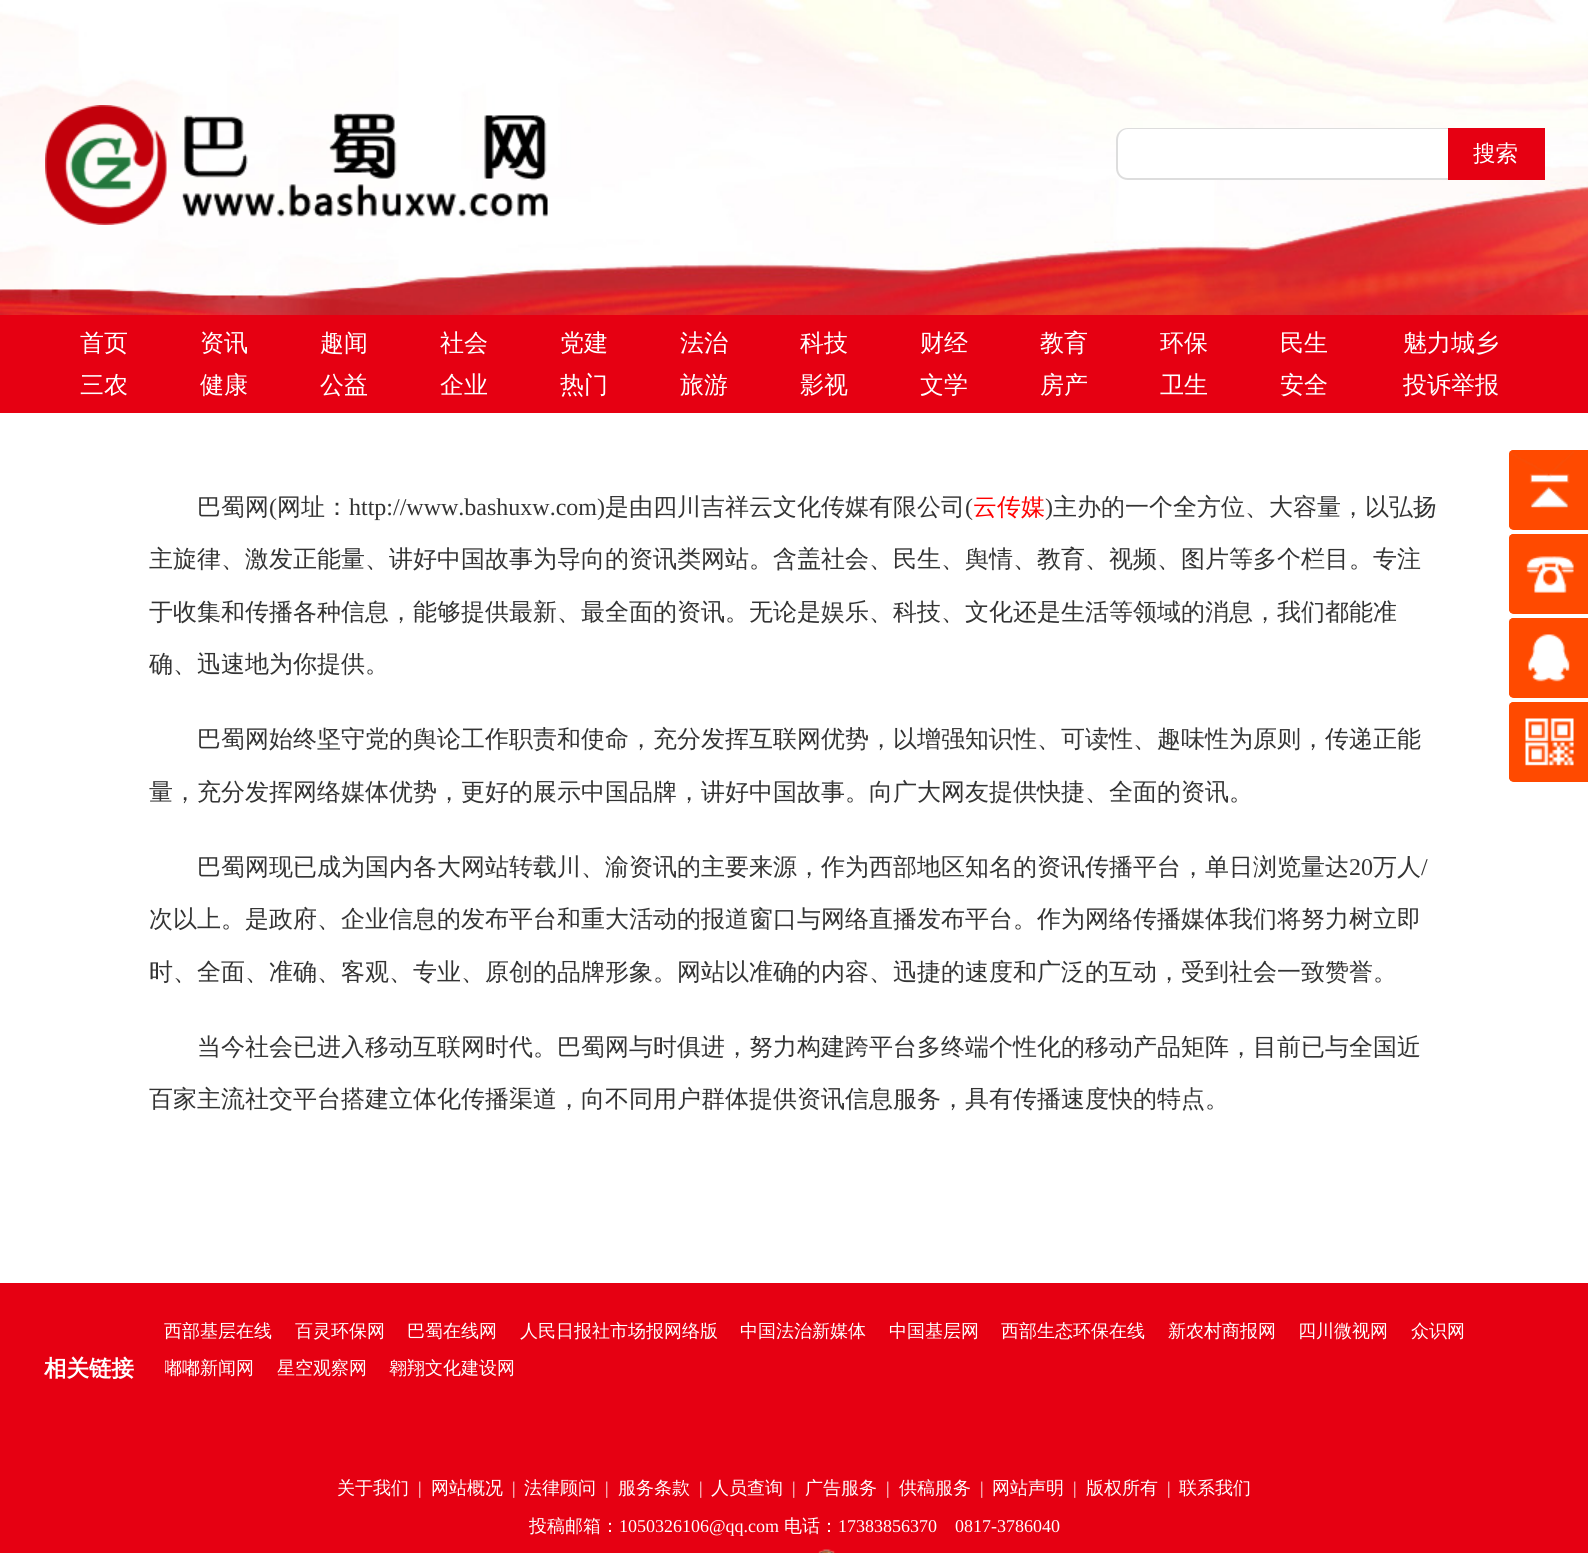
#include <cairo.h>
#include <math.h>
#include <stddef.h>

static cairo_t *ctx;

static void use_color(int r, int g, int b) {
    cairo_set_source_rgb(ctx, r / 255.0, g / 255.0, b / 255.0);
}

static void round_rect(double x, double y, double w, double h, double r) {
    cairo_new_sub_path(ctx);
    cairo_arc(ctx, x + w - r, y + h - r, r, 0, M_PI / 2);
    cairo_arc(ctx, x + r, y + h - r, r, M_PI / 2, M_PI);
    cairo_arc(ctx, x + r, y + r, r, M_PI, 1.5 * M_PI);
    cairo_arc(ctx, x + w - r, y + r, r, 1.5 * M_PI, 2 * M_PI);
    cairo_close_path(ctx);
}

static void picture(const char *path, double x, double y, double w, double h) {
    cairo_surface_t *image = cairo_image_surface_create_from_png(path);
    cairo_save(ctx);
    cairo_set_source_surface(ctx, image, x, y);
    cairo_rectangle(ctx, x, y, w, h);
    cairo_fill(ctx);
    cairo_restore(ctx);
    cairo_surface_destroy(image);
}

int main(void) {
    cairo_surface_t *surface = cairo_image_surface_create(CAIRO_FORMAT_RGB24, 1588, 1553);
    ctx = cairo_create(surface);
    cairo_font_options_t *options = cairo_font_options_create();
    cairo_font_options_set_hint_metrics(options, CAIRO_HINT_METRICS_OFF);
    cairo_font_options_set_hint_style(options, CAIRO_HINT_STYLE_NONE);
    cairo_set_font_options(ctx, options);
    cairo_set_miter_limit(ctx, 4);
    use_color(255, 255, 255);
    cairo_paint(ctx);
    picture("img1.png", 0, 0, 1588, 315);
    picture("img2.png", 45, 105, 503, 120);
    use_color(255, 255, 255);
    cairo_new_path(ctx);
    cairo_move_to(ctx, 1128, 128);
    cairo_line_to(ctx, 1448, 128);
    cairo_line_to(ctx, 1448, 180);
    cairo_line_to(ctx, 1128, 180);
    cairo_curve_to(ctx, 1121.5, 180, 1116, 174.5, 1116, 168);
    cairo_line_to(ctx, 1116, 140);
    cairo_curve_to(ctx, 1116, 133.5, 1121.5, 128, 1128, 128);
    cairo_close_path(ctx);
    cairo_fill(ctx);
    use_color(221, 221, 221);
    cairo_set_fill_rule(ctx, CAIRO_FILL_RULE_EVEN_ODD);
    cairo_new_path(ctx);
    cairo_move_to(ctx, 1128, 128);
    cairo_line_to(ctx, 1448, 128);
    cairo_line_to(ctx, 1448, 180);
    cairo_line_to(ctx, 1128, 180);
    cairo_curve_to(ctx, 1121, 180, 1116, 175, 1116, 168);
    cairo_line_to(ctx, 1116, 140);
    cairo_curve_to(ctx, 1116, 133, 1121, 128, 1128, 128);
    cairo_close_path(ctx);
    cairo_move_to(ctx, 1128, 129);
    cairo_line_to(ctx, 1448, 129);
    cairo_line_to(ctx, 1448, 178);
    cairo_line_to(ctx, 1128, 178);
    cairo_curve_to(ctx, 1122, 178, 1118, 174, 1118, 168);
    cairo_line_to(ctx, 1118, 140);
    cairo_curve_to(ctx, 1118, 134, 1122, 129, 1128, 129);
    cairo_close_path(ctx);
    cairo_fill(ctx);
    use_color(230, 0, 18);
    cairo_rectangle(ctx, 1448, 128, 97, 52);
    cairo_fill(ctx);
    cairo_select_font_face(ctx, "WenQuanYi Zen Hei Medium", CAIRO_FONT_SLANT_NORMAL, CAIRO_FONT_WEIGHT_NORMAL);
    cairo_set_font_size(ctx, 22.5);
    use_color(255, 255, 255);
    cairo_move_to(ctx, 1473, 161);
    cairo_show_text(ctx, "搜索");
    use_color(230, 0, 18);
    cairo_rectangle(ctx, 0, 315, 1588, 98);
    cairo_fill(ctx);
    cairo_set_font_size(ctx, 24);
    use_color(255, 255, 255);
    cairo_move_to(ctx, 80, 351);
    cairo_show_text(ctx, "首页");
    cairo_move_to(ctx, 200, 351);
    cairo_show_text(ctx, "资讯");
    cairo_move_to(ctx, 320, 351);
    cairo_show_text(ctx, "趣闻");
    cairo_move_to(ctx, 440, 351);
    cairo_show_text(ctx, "社会");
    cairo_move_to(ctx, 560, 351);
    cairo_show_text(ctx, "党建");
    cairo_move_to(ctx, 680, 351);
    cairo_show_text(ctx, "法治");
    cairo_move_to(ctx, 800, 351);
    cairo_show_text(ctx, "科技");
    cairo_move_to(ctx, 920, 351);
    cairo_show_text(ctx, "财经");
    cairo_move_to(ctx, 1040, 351);
    cairo_show_text(ctx, "教育");
    cairo_move_to(ctx, 1160, 351);
    cairo_show_text(ctx, "环保");
    cairo_move_to(ctx, 1280, 351);
    cairo_show_text(ctx, "民生");
    cairo_move_to(ctx, 1403, 351);
    cairo_show_text(ctx, "魅力城乡");
    cairo_move_to(ctx, 80, 393);
    cairo_show_text(ctx, "三农");
    cairo_move_to(ctx, 200, 393);
    cairo_show_text(ctx, "健康");
    cairo_move_to(ctx, 320, 393);
    cairo_show_text(ctx, "公益");
    cairo_move_to(ctx, 440, 393);
    cairo_show_text(ctx, "企业");
    cairo_move_to(ctx, 560, 393);
    cairo_show_text(ctx, "热门");
    cairo_move_to(ctx, 680, 393);
    cairo_show_text(ctx, "旅游");
    cairo_move_to(ctx, 800, 393);
    cairo_show_text(ctx, "影视");
    cairo_move_to(ctx, 920, 393);
    cairo_show_text(ctx, "文学");
    cairo_move_to(ctx, 1040, 393);
    cairo_show_text(ctx, "房产");
    cairo_move_to(ctx, 1160, 393);
    cairo_show_text(ctx, "卫生");
    cairo_move_to(ctx, 1280, 393);
    cairo_show_text(ctx, "安全");
    cairo_move_to(ctx, 1403, 393);
    cairo_show_text(ctx, "投诉举报");
    use_color(51, 51, 51);
    cairo_move_to(ctx, 197, 515);
    cairo_show_text(ctx, "巴蜀网");
    cairo_select_font_face(ctx, "Liberation Serif", CAIRO_FONT_SLANT_NORMAL, CAIRO_FONT_WEIGHT_NORMAL);
    cairo_move_to(ctx, 269, 515);
    cairo_show_text(ctx, "(");
    cairo_select_font_face(ctx, "WenQuanYi Zen Hei Medium", CAIRO_FONT_SLANT_NORMAL, CAIRO_FONT_WEIGHT_NORMAL);
    cairo_move_to(ctx, 277, 515);
    cairo_show_text(ctx, "网址：");
    cairo_select_font_face(ctx, "Liberation Serif", CAIRO_FONT_SLANT_NORMAL, CAIRO_FONT_WEIGHT_NORMAL);
    cairo_move_to(ctx, 349, 515);
    cairo_show_text(ctx, "http://www.bashuxw.com)");
    cairo_select_font_face(ctx, "WenQuanYi Zen Hei Medium", CAIRO_FONT_SLANT_NORMAL, CAIRO_FONT_WEIGHT_NORMAL);
    cairo_move_to(ctx, 605, 515);
    cairo_show_text(ctx, "是由四川吉祥云文化传媒有限公司");
    cairo_select_font_face(ctx, "Liberation Serif", CAIRO_FONT_SLANT_NORMAL, CAIRO_FONT_WEIGHT_NORMAL);
    cairo_move_to(ctx, 965, 515);
    cairo_show_text(ctx, "(");
    cairo_select_font_face(ctx, "WenQuanYi Zen Hei Medium", CAIRO_FONT_SLANT_NORMAL, CAIRO_FONT_WEIGHT_NORMAL);
    use_color(255, 0, 0);
    cairo_move_to(ctx, 973, 515);
    cairo_show_text(ctx, "云传媒");
    cairo_select_font_face(ctx, "Liberation Serif", CAIRO_FONT_SLANT_NORMAL, CAIRO_FONT_WEIGHT_NORMAL);
    use_color(51, 51, 51);
    cairo_move_to(ctx, 1045, 515);
    cairo_show_text(ctx, ")");
    cairo_select_font_face(ctx, "WenQuanYi Zen Hei Medium", CAIRO_FONT_SLANT_NORMAL, CAIRO_FONT_WEIGHT_NORMAL);
    cairo_move_to(ctx, 1053, 515);
    cairo_show_text(ctx, "主办的一个全方位、大容量，以弘扬");
    cairo_move_to(ctx, 149, 567);
    cairo_show_text(ctx, "主旋律、激发正能量、讲好中国故事为导向的资讯类网站。含盖社会、民生、舆情、教育、视频、图片等多个栏目。专注");
    cairo_move_to(ctx, 149, 620);
    cairo_show_text(ctx, "于收集和传播各种信息，能够提供最新、最全面的资讯。无论是娱乐、科技、文化还是生活等领域的消息，我们都能准");
    cairo_move_to(ctx, 149, 672);
    cairo_show_text(ctx, "确、迅速地为你提供。");
    cairo_move_to(ctx, 197, 747);
    cairo_show_text(ctx, "巴蜀网始终坚守党的舆论工作职责和使命，充分发挥互联网优势，以增强知识性、可读性、趣味性为原则，传递正能");
    cairo_move_to(ctx, 149, 800);
    cairo_show_text(ctx, "量，充分发挥网络媒体优势，更好的展示中国品牌，讲好中国故事。向广大网友提供快捷、全面的资讯。");
    cairo_move_to(ctx, 197, 875);
    cairo_show_text(ctx, "巴蜀网现已成为国内各大网站转载川、渝资讯的主要来源，作为西部地区知名的资讯传播平台，单日浏览量达");
    cairo_select_font_face(ctx, "Liberation Serif", CAIRO_FONT_SLANT_NORMAL, CAIRO_FONT_WEIGHT_NORMAL);
    cairo_move_to(ctx, 1349, 875);
    cairo_show_text(ctx, "20");
    cairo_select_font_face(ctx, "WenQuanYi Zen Hei Medium", CAIRO_FONT_SLANT_NORMAL, CAIRO_FONT_WEIGHT_NORMAL);
    cairo_move_to(ctx, 1373, 875);
    cairo_show_text(ctx, "万人");
    cairo_select_font_face(ctx, "Liberation Serif", CAIRO_FONT_SLANT_NORMAL, CAIRO_FONT_WEIGHT_NORMAL);
    cairo_move_to(ctx, 1421, 875);
    cairo_show_text(ctx, "/");
    cairo_select_font_face(ctx, "WenQuanYi Zen Hei Medium", CAIRO_FONT_SLANT_NORMAL, CAIRO_FONT_WEIGHT_NORMAL);
    cairo_move_to(ctx, 149, 927);
    cairo_show_text(ctx, "次以上。是政府、企业信息的发布平台和重大活动的报道窗口与网络直播发布平台。作为网络传播媒体我们将努力树立即");
    cairo_move_to(ctx, 149, 980);
    cairo_show_text(ctx, "时、全面、准确、客观、专业、原创的品牌形象。网站以准确的内容、迅捷的速度和广泛的互动，受到社会一致赞誉。");
    cairo_move_to(ctx, 197, 1055);
    cairo_show_text(ctx, "当今社会已进入移动互联网时代。巴蜀网与时俱进，努力构建跨平台多终端个性化的移动产品矩阵，目前已与全国近");
    cairo_move_to(ctx, 149, 1107);
    cairo_show_text(ctx, "百家主流社交平台搭建立体化传播渠道，向不同用户群体提供资讯信息服务，具有传播速度快的特点。");
    use_color(255, 74, 0);
    round_rect(1509, 450, 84, 80, 5);
    cairo_fill(ctx);
    picture("img3.png", 1509, 450, 65, 80);
    round_rect(1509, 534, 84, 80, 5);
    cairo_fill(ctx);
    picture("img4.png", 1509, 534, 65, 80);
    round_rect(1509, 618, 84, 80, 5);
    cairo_fill(ctx);
    picture("img5.png", 1509, 618, 61, 80);
    round_rect(1509, 702, 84, 80, 5);
    cairo_fill(ctx);
    picture("img6.png", 1509, 702, 65, 80);
    use_color(230, 0, 18);
    cairo_rectangle(ctx, 0, 1283, 1588, 270);
    cairo_fill(ctx);
    cairo_select_font_face(ctx, "WenQuanYi Zen Hei", CAIRO_FONT_SLANT_NORMAL, CAIRO_FONT_WEIGHT_BOLD);
    cairo_set_font_size(ctx, 22.5);
    use_color(255, 255, 255);
    cairo_move_to(ctx, 44, 1376);
    cairo_show_text(ctx, "相关链接");
    cairo_select_font_face(ctx, "WenQuanYi Zen Hei Medium", CAIRO_FONT_SLANT_NORMAL, CAIRO_FONT_WEIGHT_NORMAL);
    cairo_set_font_size(ctx, 18);
    cairo_move_to(ctx, 164, 1337);
    cairo_show_text(ctx, "西部基层在线");
    cairo_move_to(ctx, 295, 1337);
    cairo_show_text(ctx, "百灵环保网");
    cairo_move_to(ctx, 407, 1337);
    cairo_show_text(ctx, "巴蜀在线网");
    cairo_move_to(ctx, 520, 1337);
    cairo_show_text(ctx, "人民日报社市场报网络版");
    cairo_move_to(ctx, 740, 1337);
    cairo_show_text(ctx, "中国法治新媒体");
    cairo_move_to(ctx, 889, 1337);
    cairo_show_text(ctx, "中国基层网");
    cairo_move_to(ctx, 1001, 1337);
    cairo_show_text(ctx, "西部生态环保在线");
    cairo_move_to(ctx, 1168, 1337);
    cairo_show_text(ctx, "新农村商报网");
    cairo_move_to(ctx, 1298, 1337);
    cairo_show_text(ctx, "四川微视网");
    cairo_move_to(ctx, 1411, 1337);
    cairo_show_text(ctx, "众识网");
    cairo_save(ctx);
    cairo_set_fill_rule(ctx, CAIRO_FILL_RULE_WINDING);
    cairo_rectangle(ctx, 165, 1313, 1380, 112);
    cairo_clip(ctx);
    cairo_move_to(ctx, 164, 1374);
    cairo_show_text(ctx, "嘟嘟新闻网");
    cairo_restore(ctx);
    cairo_move_to(ctx, 277, 1374);
    cairo_show_text(ctx, "星空观察网");
    cairo_move_to(ctx, 389, 1374);
    cairo_show_text(ctx, "翱翔文化建设网");
    cairo_move_to(ctx, 337, 1494);
    cairo_show_text(ctx, "关于我们");
    cairo_select_font_face(ctx, "Liberation Serif", CAIRO_FONT_SLANT_NORMAL, CAIRO_FONT_WEIGHT_NORMAL);
    cairo_move_to(ctx, 418, 1494);
    cairo_show_text(ctx, "|");
    cairo_select_font_face(ctx, "WenQuanYi Zen Hei Medium", CAIRO_FONT_SLANT_NORMAL, CAIRO_FONT_WEIGHT_NORMAL);
    cairo_move_to(ctx, 431, 1494);
    cairo_show_text(ctx, "网站概况");
    cairo_select_font_face(ctx, "Liberation Serif", CAIRO_FONT_SLANT_NORMAL, CAIRO_FONT_WEIGHT_NORMAL);
    cairo_move_to(ctx, 512, 1494);
    cairo_show_text(ctx, "|");
    cairo_select_font_face(ctx, "WenQuanYi Zen Hei Medium", CAIRO_FONT_SLANT_NORMAL, CAIRO_FONT_WEIGHT_NORMAL);
    cairo_move_to(ctx, 524, 1494);
    cairo_show_text(ctx, "法律顾问");
    cairo_select_font_face(ctx, "Liberation Serif", CAIRO_FONT_SLANT_NORMAL, CAIRO_FONT_WEIGHT_NORMAL);
    cairo_move_to(ctx, 605, 1494);
    cairo_show_text(ctx, "|");
    cairo_select_font_face(ctx, "WenQuanYi Zen Hei Medium", CAIRO_FONT_SLANT_NORMAL, CAIRO_FONT_WEIGHT_NORMAL);
    cairo_move_to(ctx, 618, 1494);
    cairo_show_text(ctx, "服务条款");
    cairo_select_font_face(ctx, "Liberation Serif", CAIRO_FONT_SLANT_NORMAL, CAIRO_FONT_WEIGHT_NORMAL);
    cairo_move_to(ctx, 699, 1494);
    cairo_show_text(ctx, "|");
    cairo_select_font_face(ctx, "WenQuanYi Zen Hei Medium", CAIRO_FONT_SLANT_NORMAL, CAIRO_FONT_WEIGHT_NORMAL);
    cairo_move_to(ctx, 711, 1494);
    cairo_show_text(ctx, "人员查询");
    cairo_select_font_face(ctx, "Liberation Serif", CAIRO_FONT_SLANT_NORMAL, CAIRO_FONT_WEIGHT_NORMAL);
    cairo_move_to(ctx, 792, 1494);
    cairo_show_text(ctx, "|");
    cairo_select_font_face(ctx, "WenQuanYi Zen Hei Medium", CAIRO_FONT_SLANT_NORMAL, CAIRO_FONT_WEIGHT_NORMAL);
    cairo_move_to(ctx, 805, 1494);
    cairo_show_text(ctx, "广告服务");
    cairo_select_font_face(ctx, "Liberation Serif", CAIRO_FONT_SLANT_NORMAL, CAIRO_FONT_WEIGHT_NORMAL);
    cairo_move_to(ctx, 886, 1494);
    cairo_show_text(ctx, "|");
    cairo_select_font_face(ctx, "WenQuanYi Zen Hei Medium", CAIRO_FONT_SLANT_NORMAL, CAIRO_FONT_WEIGHT_NORMAL);
    cairo_move_to(ctx, 899, 1494);
    cairo_show_text(ctx, "供稿服务");
    cairo_select_font_face(ctx, "Liberation Serif", CAIRO_FONT_SLANT_NORMAL, CAIRO_FONT_WEIGHT_NORMAL);
    cairo_move_to(ctx, 980, 1494);
    cairo_show_text(ctx, "|");
    cairo_select_font_face(ctx, "WenQuanYi Zen Hei Medium", CAIRO_FONT_SLANT_NORMAL, CAIRO_FONT_WEIGHT_NORMAL);
    cairo_move_to(ctx, 992, 1494);
    cairo_show_text(ctx, "网站声明");
    cairo_select_font_face(ctx, "Liberation Serif", CAIRO_FONT_SLANT_NORMAL, CAIRO_FONT_WEIGHT_NORMAL);
    cairo_move_to(ctx, 1073, 1494);
    cairo_show_text(ctx, "|");
    cairo_select_font_face(ctx, "WenQuanYi Zen Hei Medium", CAIRO_FONT_SLANT_NORMAL, CAIRO_FONT_WEIGHT_NORMAL);
    cairo_move_to(ctx, 1086, 1494);
    cairo_show_text(ctx, "版权所有");
    cairo_select_font_face(ctx, "Liberation Serif", CAIRO_FONT_SLANT_NORMAL, CAIRO_FONT_WEIGHT_NORMAL);
    cairo_move_to(ctx, 1167, 1494);
    cairo_show_text(ctx, "|");
    cairo_select_font_face(ctx, "WenQuanYi Zen Hei Medium", CAIRO_FONT_SLANT_NORMAL, CAIRO_FONT_WEIGHT_NORMAL);
    cairo_move_to(ctx, 1179, 1494);
    cairo_show_text(ctx, "联系我们");
    cairo_move_to(ctx, 529, 1532);
    cairo_show_text(ctx, "投稿邮箱：");
    cairo_select_font_face(ctx, "Liberation Serif", CAIRO_FONT_SLANT_NORMAL, CAIRO_FONT_WEIGHT_NORMAL);
    cairo_move_to(ctx, 619, 1532);
    cairo_show_text(ctx, "1050326106@qq.com");
    cairo_select_font_face(ctx, "WenQuanYi Zen Hei Medium", CAIRO_FONT_SLANT_NORMAL, CAIRO_FONT_WEIGHT_NORMAL);
    cairo_move_to(ctx, 784, 1532);
    cairo_show_text(ctx, "电话：");
    cairo_select_font_face(ctx, "Liberation Serif", CAIRO_FONT_SLANT_NORMAL, CAIRO_FONT_WEIGHT_NORMAL);
    cairo_move_to(ctx, 838, 1532);
    cairo_show_text(ctx, "17383856370");
    cairo_move_to(ctx, 955, 1532);
    cairo_show_text(ctx, "0817-3786040");
    picture("img7.png", 818, 1549, 17, 4);
    cairo_surface_write_to_png(surface, "result.png");
    cairo_font_options_destroy(options);
    cairo_destroy(ctx);
    cairo_surface_destroy(surface);
    return 0;
}
